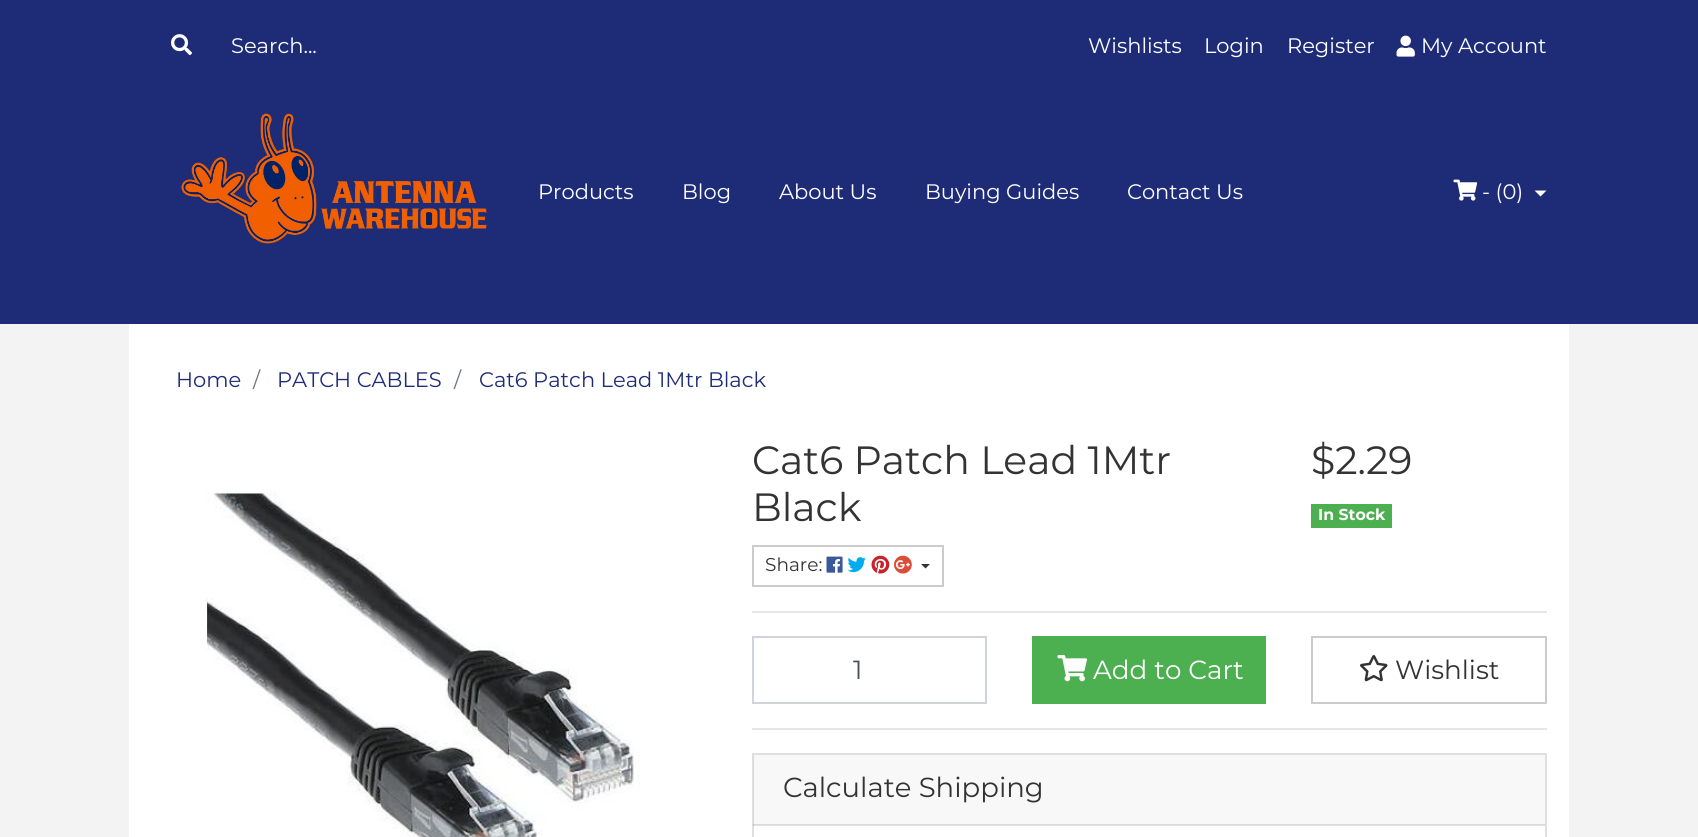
#include <cairo.h>
#include <math.h>
#include <stddef.h>

static cairo_t *ctx;

static void use_color(int r, int g, int b) {
    cairo_set_source_rgb(ctx, r / 255.0, g / 255.0, b / 255.0);
}

static void picture(const char *path, double x, double y, double w, double h) {
    cairo_surface_t *image = cairo_image_surface_create_from_png(path);
    cairo_save(ctx);
    cairo_set_source_surface(ctx, image, x, y);
    cairo_rectangle(ctx, x, y, w, h);
    cairo_fill(ctx);
    cairo_restore(ctx);
    cairo_surface_destroy(image);
}

int main(void) {
    cairo_surface_t *surface = cairo_image_surface_create(CAIRO_FORMAT_RGB24, 1698, 837);
    ctx = cairo_create(surface);
    cairo_font_options_t *options = cairo_font_options_create();
    cairo_font_options_set_hint_metrics(options, CAIRO_HINT_METRICS_OFF);
    cairo_font_options_set_hint_style(options, CAIRO_HINT_STYLE_NONE);
    cairo_set_font_options(ctx, options);
    cairo_set_miter_limit(ctx, 4);
    use_color(243, 243, 243);
    cairo_paint(ctx);
    use_color(30, 44, 120);
    cairo_rectangle(ctx, 0, 0, 1698, 324);
    cairo_fill(ctx);
    picture("img1.png", 171, 34, 21, 22);
    cairo_select_font_face(ctx, "Montserrat", CAIRO_FONT_SLANT_NORMAL, CAIRO_FONT_WEIGHT_NORMAL);
    cairo_set_font_size(ctx, 21);
    use_color(255, 255, 255);
    cairo_move_to(ctx, 231, 53);
    cairo_show_text(ctx, "Search...");
    cairo_move_to(ctx, 1088, 53);
    cairo_show_text(ctx, "Wishlists");
    cairo_move_to(ctx, 1204, 53);
    cairo_show_text(ctx, "Login");
    cairo_move_to(ctx, 1287, 53);
    cairo_show_text(ctx, "Register");
    picture("img2.png", 1396, 35, 19, 22);
    cairo_move_to(ctx, 1421, 53);
    cairo_show_text(ctx, "My Account");
    picture("img3.png", 181, 112, 306, 133);
    cairo_move_to(ctx, 538, 199);
    cairo_show_text(ctx, "Products");
    cairo_move_to(ctx, 682, 199);
    cairo_show_text(ctx, "Blog");
    cairo_move_to(ctx, 779, 199);
    cairo_show_text(ctx, "About Us");
    cairo_move_to(ctx, 925, 199);
    cairo_show_text(ctx, "Buying Guides");
    cairo_move_to(ctx, 1127, 199);
    cairo_show_text(ctx, "Contact Us");
    picture("img4.png", 1453, 179, 25, 22);
    cairo_move_to(ctx, 1482, 199);
    cairo_show_text(ctx, "- (0)");
    cairo_new_path(ctx);
    cairo_move_to(ctx, 1534.5, 190.5);
    cairo_line_to(ctx, 1546.5, 190.5);
    cairo_line_to(ctx, 1540.5, 196.5);
    cairo_close_path(ctx);
    cairo_fill(ctx);
    cairo_rectangle(ctx, 129, 324, 1440, 513);
    cairo_fill(ctx);
    use_color(30, 44, 120);
    cairo_move_to(ctx, 176, 387);
    cairo_show_text(ctx, "Home");
    use_color(108, 117, 125);
    cairo_move_to(ctx, 253, 387);
    cairo_show_text(ctx, "/");
    use_color(30, 44, 120);
    cairo_move_to(ctx, 277, 387);
    cairo_show_text(ctx, "PATCH CABLES");
    use_color(108, 117, 125);
    cairo_move_to(ctx, 454, 387);
    cairo_show_text(ctx, "/");
    use_color(30, 44, 120);
    cairo_move_to(ctx, 479, 387);
    cairo_show_text(ctx, "Cat6 Patch Lead 1Mtr Black");
    picture("img5.png", 205, 491, 435, 346);
    cairo_set_font_size(ctx, 39.4);
    use_color(51, 51, 51);
    cairo_move_to(ctx, 752, 474);
    cairo_show_text(ctx, "Cat6 Patch Lead 1Mtr");
    cairo_move_to(ctx, 752, 521);
    cairo_show_text(ctx, "Black");
    cairo_rectangle(ctx, 753, 546, 190, 40);
    use_color(204, 204, 204);
    cairo_stroke(ctx);
    cairo_set_font_size(ctx, 18.5);
    use_color(51, 51, 51);
    cairo_move_to(ctx, 765, 571);
    cairo_show_text(ctx, "Share:");
    picture("img6.png", 826, 556, 17, 17);
    picture("img7.png", 847, 557, 19, 16);
    picture("img8.png", 871, 555, 19, 19);
    picture("img9.png", 894, 555, 18, 19);
    cairo_new_path(ctx);
    cairo_move_to(ctx, 921, 564);
    cairo_line_to(ctx, 930, 564);
    cairo_line_to(ctx, 925.5, 568.5);
    cairo_close_path(ctx);
    cairo_fill(ctx);
    cairo_set_font_size(ctx, 39.4);
    cairo_move_to(ctx, 1311, 474);
    cairo_show_text(ctx, "$2.29");
    use_color(76, 175, 80);
    cairo_rectangle(ctx, 1311, 504, 81, 24);
    cairo_fill(ctx);
    cairo_select_font_face(ctx, "Montserrat", CAIRO_FONT_SLANT_NORMAL, CAIRO_FONT_WEIGHT_BOLD);
    cairo_set_font_size(ctx, 15.75);
    use_color(255, 255, 255);
    cairo_move_to(ctx, 1318, 520);
    cairo_show_text(ctx, "In Stock");
    use_color(230, 230, 230);
    cairo_rectangle(ctx, 752, 611, 795, 2);
    cairo_fill(ctx);
    cairo_rectangle(ctx, 753, 637, 233, 66);
    use_color(206, 212, 218);
    cairo_stroke(ctx);
    cairo_select_font_face(ctx, "Montserrat", CAIRO_FONT_SLANT_NORMAL, CAIRO_FONT_WEIGHT_NORMAL);
    cairo_set_font_size(ctx, 26.25);
    use_color(73, 80, 87);
    cairo_move_to(ctx, 853, 679);
    cairo_show_text(ctx, "1");
    use_color(76, 175, 80);
    cairo_rectangle(ctx, 1032, 636, 234, 68);
    cairo_fill(ctx);
    picture("img10.png", 1057, 655, 30, 27);
    use_color(255, 255, 255);
    cairo_move_to(ctx, 1093, 679);
    cairo_show_text(ctx, "Add to Cart");
    cairo_rectangle(ctx, 1312, 637, 234, 66);
    use_color(204, 204, 204);
    cairo_stroke(ctx);
    picture("img11.png", 1360, 655, 28, 27);
    use_color(51, 51, 51);
    cairo_move_to(ctx, 1395, 679);
    cairo_show_text(ctx, "Wishlist");
    use_color(230, 230, 230);
    cairo_rectangle(ctx, 752, 728, 795, 2);
    cairo_fill(ctx);
    cairo_rectangle(ctx, 753, 754, 793, 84);
    use_color(223, 223, 223);
    cairo_stroke(ctx);
    cairo_set_source_rgba(ctx, 0, 0, 0, 0.03);
    cairo_rectangle(ctx, 753, 755, 792, 70);
    cairo_fill(ctx);
    cairo_set_source_rgba(ctx, 0, 0, 0, 0.12);
    cairo_rectangle(ctx, 753, 824, 792, 2);
    cairo_fill(ctx);
    cairo_set_font_size(ctx, 27.5);
    use_color(51, 51, 51);
    cairo_move_to(ctx, 783, 797);
    cairo_show_text(ctx, "Calculate Shipping");
    cairo_surface_write_to_png(surface, "result.png");
    cairo_font_options_destroy(options);
    cairo_destroy(ctx);
    cairo_surface_destroy(surface);
    return 0;
}
